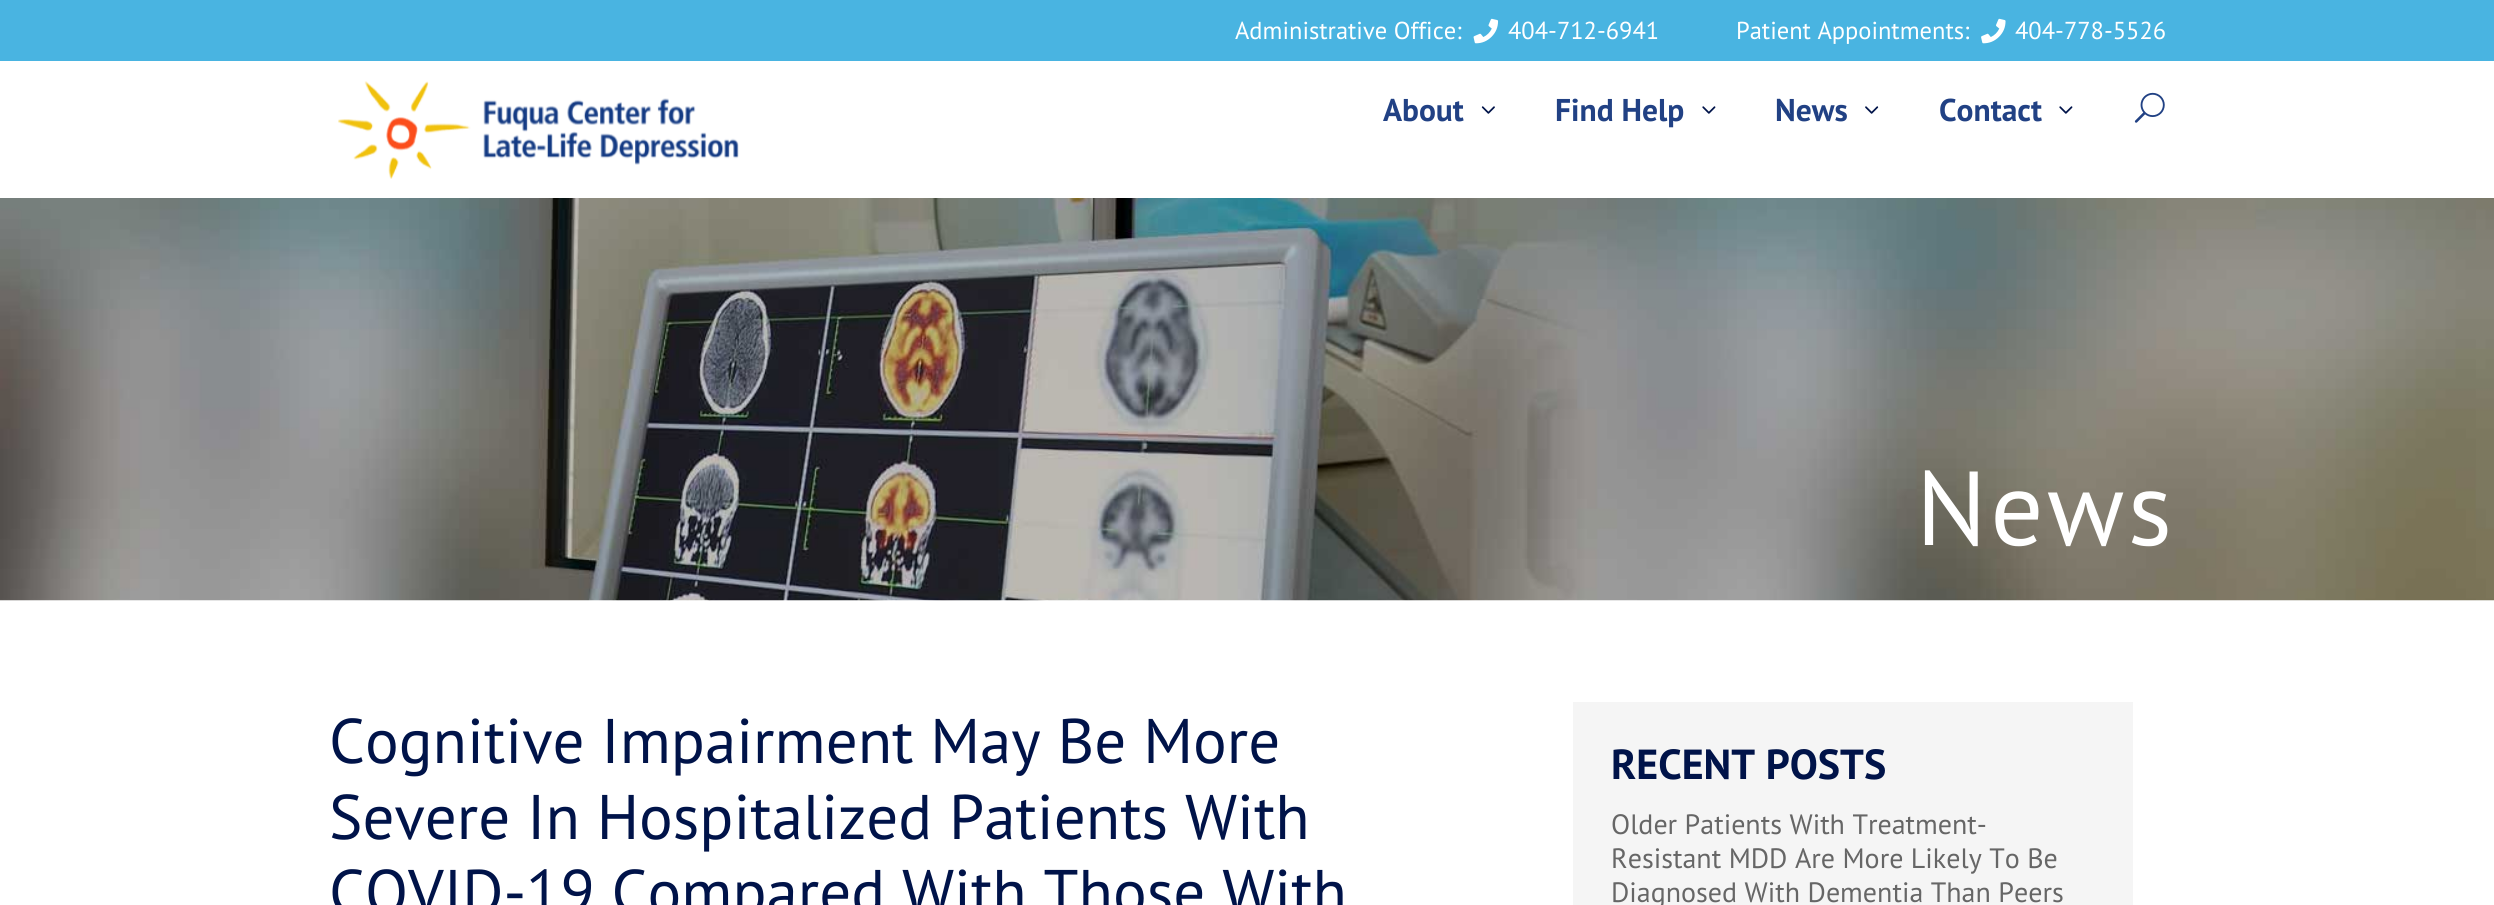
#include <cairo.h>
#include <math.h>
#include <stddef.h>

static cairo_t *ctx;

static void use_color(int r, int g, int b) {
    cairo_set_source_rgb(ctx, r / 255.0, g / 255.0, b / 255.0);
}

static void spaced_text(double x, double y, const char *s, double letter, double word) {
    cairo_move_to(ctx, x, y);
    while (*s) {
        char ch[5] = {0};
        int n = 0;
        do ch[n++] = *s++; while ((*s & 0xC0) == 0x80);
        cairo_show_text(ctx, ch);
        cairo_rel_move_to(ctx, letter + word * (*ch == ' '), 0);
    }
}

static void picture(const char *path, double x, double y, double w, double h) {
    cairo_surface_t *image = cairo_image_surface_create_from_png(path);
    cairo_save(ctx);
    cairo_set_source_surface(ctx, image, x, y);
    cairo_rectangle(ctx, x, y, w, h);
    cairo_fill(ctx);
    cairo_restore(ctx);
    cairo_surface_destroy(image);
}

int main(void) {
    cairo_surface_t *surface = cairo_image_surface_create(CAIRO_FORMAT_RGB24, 2494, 905);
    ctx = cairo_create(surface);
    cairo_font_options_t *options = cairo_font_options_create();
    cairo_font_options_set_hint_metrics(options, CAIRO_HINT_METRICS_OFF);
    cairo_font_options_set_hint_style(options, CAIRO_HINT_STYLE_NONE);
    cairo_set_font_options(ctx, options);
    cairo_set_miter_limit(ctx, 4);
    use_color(255, 255, 255);
    cairo_paint(ctx);
    use_color(73, 180, 225);
    cairo_rectangle(ctx, 0, 0, 2494, 61);
    cairo_fill(ctx);
    cairo_select_font_face(ctx, "PT Sans", CAIRO_FONT_SLANT_NORMAL, CAIRO_FONT_WEIGHT_NORMAL);
    cairo_set_font_size(ctx, 24.5);
    use_color(255, 255, 255);
    cairo_move_to(ctx, 1235, 39);
    cairo_show_text(ctx, "Administrative Office:");
    picture("img1.png", 1473, 18, 26, 26);
    cairo_move_to(ctx, 1508, 39);
    cairo_show_text(ctx, "404-712-6941");
    cairo_move_to(ctx, 1736, 39);
    cairo_show_text(ctx, "Patient Appointments:");
    picture("img2.png", 1981, 18, 25, 26);
    cairo_move_to(ctx, 2015, 39);
    cairo_show_text(ctx, "404-778-5526");
    picture("img3.png", 338, 81, 401, 98);
    cairo_select_font_face(ctx, "PT Sans", CAIRO_FONT_SLANT_NORMAL, CAIRO_FONT_WEIGHT_BOLD);
    cairo_set_font_size(ctx, 31.5);
    use_color(33, 65, 132);
    cairo_move_to(ctx, 1383, 121);
    cairo_show_text(ctx, "About");
    picture("img4.png", 1481, 106, 14, 8);
    cairo_move_to(ctx, 1555, 121);
    cairo_show_text(ctx, "Find Help");
    picture("img5.png", 1702, 106, 14, 8);
    cairo_move_to(ctx, 1775, 121);
    cairo_show_text(ctx, "News");
    picture("img6.png", 1865, 106, 14, 8);
    cairo_move_to(ctx, 1939, 121);
    cairo_show_text(ctx, "Contact");
    picture("img5.png", 2059, 106, 14, 8);
    picture("img7.png", 2134, 92, 31, 31);
    picture("img8.png", 0, 198, 2494, 403);
    cairo_select_font_face(ctx, "PT Sans", CAIRO_FONT_SLANT_NORMAL, CAIRO_FONT_WEIGHT_NORMAL);
    cairo_set_font_size(ctx, 105);
    use_color(255, 255, 255);
    spaced_text(1916, 545, "News", 3.5, 0);
    cairo_set_font_size(ctx, 63);
    use_color(0, 19, 73);
    cairo_move_to(ctx, 329, 763);
    cairo_show_text(ctx, "Cognitive Impairment May Be More");
    cairo_move_to(ctx, 329, 839);
    cairo_show_text(ctx, "Severe In Hospitalized Patients With");
    cairo_move_to(ctx, 329, 914);
    cairo_show_text(ctx, "COVID-19 Compared With Those With");
    use_color(245, 245, 245);
    cairo_rectangle(ctx, 1573, 702, 560, 203);
    cairo_fill(ctx);
    cairo_select_font_face(ctx, "PT Sans", CAIRO_FONT_SLANT_NORMAL, CAIRO_FONT_WEIGHT_BOLD);
    cairo_set_font_size(ctx, 42);
    use_color(0, 19, 73);
    cairo_move_to(ctx, 1611, 779);
    cairo_show_text(ctx, "RECENT POSTS");
    cairo_select_font_face(ctx, "PT Sans", CAIRO_FONT_SLANT_NORMAL, CAIRO_FONT_WEIGHT_NORMAL);
    cairo_set_font_size(ctx, 28);
    use_color(102, 102, 102);
    cairo_move_to(ctx, 1611, 834);
    cairo_show_text(ctx, "Older Patients With Treatment-");
    cairo_move_to(ctx, 1611, 868);
    cairo_show_text(ctx, "Resistant MDD Are More Likely To Be");
    cairo_move_to(ctx, 1611, 902);
    cairo_show_text(ctx, "Diagnosed With Dementia Than Peers");
    cairo_surface_write_to_png(surface, "result.png");
    cairo_font_options_destroy(options);
    cairo_destroy(ctx);
    cairo_surface_destroy(surface);
    return 0;
}
